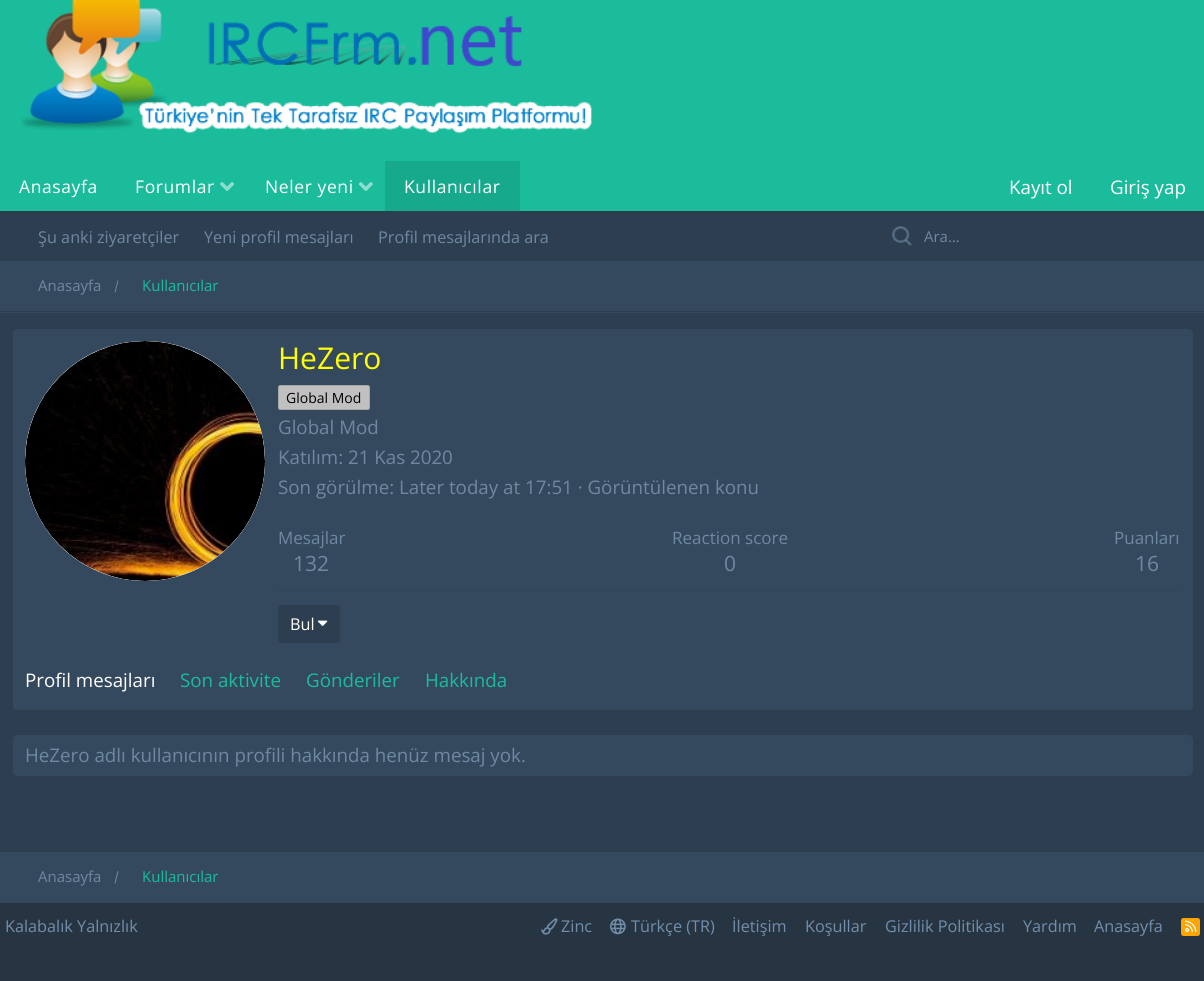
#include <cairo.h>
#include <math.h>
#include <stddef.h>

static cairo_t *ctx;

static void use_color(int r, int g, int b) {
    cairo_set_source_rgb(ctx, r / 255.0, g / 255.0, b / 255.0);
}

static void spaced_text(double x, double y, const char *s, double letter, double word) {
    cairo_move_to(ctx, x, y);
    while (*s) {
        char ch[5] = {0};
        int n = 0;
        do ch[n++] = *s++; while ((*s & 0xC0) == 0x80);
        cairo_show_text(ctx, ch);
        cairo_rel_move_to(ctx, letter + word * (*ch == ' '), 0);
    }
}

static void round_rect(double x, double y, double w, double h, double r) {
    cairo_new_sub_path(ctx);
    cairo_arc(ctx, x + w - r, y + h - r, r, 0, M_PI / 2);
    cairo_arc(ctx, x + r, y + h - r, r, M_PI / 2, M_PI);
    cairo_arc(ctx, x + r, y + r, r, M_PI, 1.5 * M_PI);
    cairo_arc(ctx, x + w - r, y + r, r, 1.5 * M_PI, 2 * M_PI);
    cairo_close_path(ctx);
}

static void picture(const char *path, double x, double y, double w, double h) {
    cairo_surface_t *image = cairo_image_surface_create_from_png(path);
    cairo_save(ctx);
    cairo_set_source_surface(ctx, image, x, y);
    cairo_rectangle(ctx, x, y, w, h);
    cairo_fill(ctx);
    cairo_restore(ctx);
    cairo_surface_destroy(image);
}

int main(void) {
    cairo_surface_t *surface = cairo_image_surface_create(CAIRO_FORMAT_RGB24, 1204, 981);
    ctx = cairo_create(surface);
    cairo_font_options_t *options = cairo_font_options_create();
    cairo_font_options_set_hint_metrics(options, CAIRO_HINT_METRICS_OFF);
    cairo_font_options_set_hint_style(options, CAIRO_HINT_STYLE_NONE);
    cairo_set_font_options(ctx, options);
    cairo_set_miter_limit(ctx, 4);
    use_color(44, 62, 80);
    cairo_paint(ctx);
    use_color(26, 188, 156);
    cairo_rectangle(ctx, 0, 0, 1204, 211);
    cairo_fill(ctx);
    picture("img1.png", 21, 0, 572, 134);
    cairo_select_font_face(ctx, "Open Sans", CAIRO_FONT_SLANT_NORMAL, CAIRO_FONT_WEIGHT_NORMAL);
    cairo_set_font_size(ctx, 17.5);
    use_color(255, 255, 255);
    spaced_text(19, 193, "Anasayfa", 0.6, 0);
    spaced_text(135, 193, "Forumlar", 0.6, 0);
    picture("img2.png", 220, 182, 14, 9);
    spaced_text(265, 193, "Neler yeni", 0.6, 0);
    picture("img3.png", 358, 182, 15, 9);
    use_color(23, 169, 140);
    cairo_rectangle(ctx, 385, 161, 135, 50);
    cairo_fill(ctx);
    use_color(255, 255, 255);
    spaced_text(404, 193, "Kullanıcılar", 0.6, 0);
    cairo_set_font_size(ctx, 18.75);
    cairo_move_to(ctx, 1009, 194);
    cairo_show_text(ctx, "Kayıt ol");
    cairo_move_to(ctx, 1110, 194);
    cairo_show_text(ctx, "Giriş yap");
    picture("img4.png", 892, 226, 20, 20);
    cairo_set_font_size(ctx, 15);
    use_color(111, 136, 162);
    cairo_move_to(ctx, 924, 242);
    cairo_show_text(ctx, "Ara…");
    cairo_set_font_size(ctx, 16.25);
    cairo_move_to(ctx, 38, 243);
    cairo_show_text(ctx, "Şu anki ziyaretçiler");
    cairo_move_to(ctx, 204, 243);
    cairo_show_text(ctx, "Yeni profil mesajları");
    cairo_move_to(ctx, 378, 243);
    cairo_show_text(ctx, "Profil mesajlarında ara");
    use_color(52, 73, 94);
    cairo_rectangle(ctx, 0, 261, 1204, 52);
    cairo_fill(ctx);
    use_color(44, 62, 80);
    cairo_rectangle(ctx, 0, 311, 1204, 1);
    cairo_fill(ctx);
    cairo_set_font_size(ctx, 15);
    use_color(111, 136, 162);
    cairo_move_to(ctx, 38, 291);
    cairo_show_text(ctx, "Anasayfa");
    cairo_new_path(ctx);
    cairo_move_to(ctx, 117.5, 280.5);
    cairo_line_to(ctx, 118.5, 280.5);
    cairo_line_to(ctx, 115.5, 292.5);
    cairo_line_to(ctx, 114.5, 292.5);
    cairo_close_path(ctx);
    cairo_fill(ctx);
    use_color(26, 188, 156);
    cairo_move_to(ctx, 142, 291);
    cairo_show_text(ctx, "Kullanıcılar");
    use_color(52, 73, 94);
    round_rect(13, 329, 1180, 381, 5);
    cairo_fill(ctx);
    use_color(254, 254, 254);
    cairo_arc(ctx, 145, 461, 120, 0, 2 * M_PI);
    cairo_fill(ctx);
    picture("img5.png", 25, 341, 240, 240);
    cairo_set_font_size(ctx, 30);
    use_color(255, 255, 0);
    cairo_move_to(ctx, 278, 369);
    cairo_show_text(ctx, "HeZero");
    use_color(192, 192, 192);
    round_rect(278.5, 385.5, 91, 24, 2);
    cairo_fill_preserve(ctx);
    use_color(167, 167, 167);
    cairo_set_line_width(ctx, 1);
    cairo_stroke(ctx);
    cairo_set_font_size(ctx, 14);
    use_color(0, 0, 0);
    cairo_move_to(ctx, 286, 403);
    cairo_show_text(ctx, "Global Mod");
    cairo_set_font_size(ctx, 18.75);
    use_color(111, 136, 162);
    cairo_move_to(ctx, 278, 434);
    cairo_show_text(ctx, "Global Mod");
    cairo_move_to(ctx, 278, 464);
    cairo_show_text(ctx, "Katılım: 21 Kas 2020");
    cairo_move_to(ctx, 278, 494);
    cairo_show_text(ctx, "Son görülme: Later today at 17:51 · Görüntülenen konu");
    cairo_set_font_size(ctx, 17);
    cairo_move_to(ctx, 278, 544);
    cairo_show_text(ctx, "Mesajlar");
    cairo_set_font_size(ctx, 21);
    cairo_move_to(ctx, 293, 571);
    cairo_show_text(ctx, "132");
    cairo_set_font_size(ctx, 17);
    cairo_move_to(ctx, 672, 544);
    cairo_show_text(ctx, "Reaction score");
    cairo_set_font_size(ctx, 21);
    cairo_move_to(ctx, 724, 571);
    cairo_show_text(ctx, "0");
    cairo_set_font_size(ctx, 17);
    cairo_move_to(ctx, 1114, 544);
    cairo_show_text(ctx, "Puanları");
    cairo_set_font_size(ctx, 21);
    cairo_move_to(ctx, 1135, 571);
    cairo_show_text(ctx, "16");
    use_color(49, 70, 90);
    cairo_rectangle(ctx, 278, 591, 902, 1);
    cairo_fill(ctx);
    use_color(44, 62, 80);
    round_rect(278, 605, 62, 38, 2.5);
    cairo_fill(ctx);
    cairo_set_font_size(ctx, 16.25);
    use_color(255, 255, 255);
    cairo_move_to(ctx, 290, 630);
    cairo_show_text(ctx, "Bul");
    picture("img6.png", 317, 620, 11, 6);
    use_color(52, 73, 94);
    cairo_new_path(ctx);
    cairo_move_to(ctx, 13, 655);
    cairo_line_to(ctx, 1193, 655);
    cairo_line_to(ctx, 1193, 706);
    cairo_curve_to(ctx, 1193, 708, 1191, 710, 1189, 710);
    cairo_line_to(ctx, 17, 710);
    cairo_curve_to(ctx, 15, 710, 13, 708, 13, 706);
    cairo_close_path(ctx);
    cairo_fill(ctx);
    cairo_set_font_size(ctx, 18.75);
    use_color(255, 255, 255);
    cairo_move_to(ctx, 25, 687);
    cairo_show_text(ctx, "Profil mesajları");
    use_color(26, 188, 156);
    cairo_move_to(ctx, 180, 687);
    cairo_show_text(ctx, "Son aktivite");
    cairo_move_to(ctx, 306, 687);
    cairo_show_text(ctx, "Gönderiler");
    cairo_move_to(ctx, 425, 687);
    cairo_show_text(ctx, "Hakkında");
    use_color(52, 73, 94);
    round_rect(13, 735, 1180, 41, 5);
    cairo_fill(ctx);
    use_color(111, 136, 162);
    cairo_move_to(ctx, 25, 762);
    cairo_show_text(ctx, "HeZero adlı kullanıcının profili hakkında henüz mesaj yok.");
    use_color(52, 73, 94);
    cairo_rectangle(ctx, 0, 852, 1204, 51);
    cairo_fill(ctx);
    cairo_set_font_size(ctx, 15);
    use_color(111, 136, 162);
    cairo_move_to(ctx, 38, 882);
    cairo_show_text(ctx, "Anasayfa");
    cairo_new_path(ctx);
    cairo_move_to(ctx, 117.5, 871);
    cairo_line_to(ctx, 118.5, 871.5);
    cairo_line_to(ctx, 115.5, 883.5);
    cairo_line_to(ctx, 114.5, 883.5);
    cairo_close_path(ctx);
    cairo_fill(ctx);
    use_color(26, 188, 156);
    cairo_move_to(ctx, 142, 882);
    cairo_show_text(ctx, "Kullanıcılar");
    use_color(39, 52, 66);
    cairo_rectangle(ctx, 0, 903, 1204, 78);
    cairo_fill(ctx);
    cairo_set_font_size(ctx, 16.25);
    use_color(114, 142, 170);
    cairo_move_to(ctx, 5, 932);
    cairo_show_text(ctx, "Kalabalık Yalnızlık");
    picture("img7.png", 541, 918, 17, 17);
    cairo_move_to(ctx, 561, 932);
    cairo_show_text(ctx, "Zinc");
    picture("img8.png", 610, 918, 16, 17);
    cairo_move_to(ctx, 631, 932);
    cairo_show_text(ctx, "Türkçe (TR)");
    cairo_move_to(ctx, 732, 932);
    cairo_show_text(ctx, "İletişim");
    cairo_move_to(ctx, 805, 932);
    cairo_show_text(ctx, "Koşullar");
    cairo_move_to(ctx, 885, 932);
    cairo_show_text(ctx, "Gizlilik Politikası");
    cairo_move_to(ctx, 1023, 932);
    cairo_show_text(ctx, "Yardım");
    cairo_move_to(ctx, 1094, 932);
    cairo_show_text(ctx, "Anasayfa");
    use_color(255, 165, 0);
    round_rect(1181, 918, 19, 18, 2.5);
    cairo_fill(ctx);
    picture("img9.png", 1185, 920, 12, 13);
    cairo_surface_write_to_png(surface, "result.png");
    cairo_font_options_destroy(options);
    cairo_destroy(ctx);
    cairo_surface_destroy(surface);
    return 0;
}
